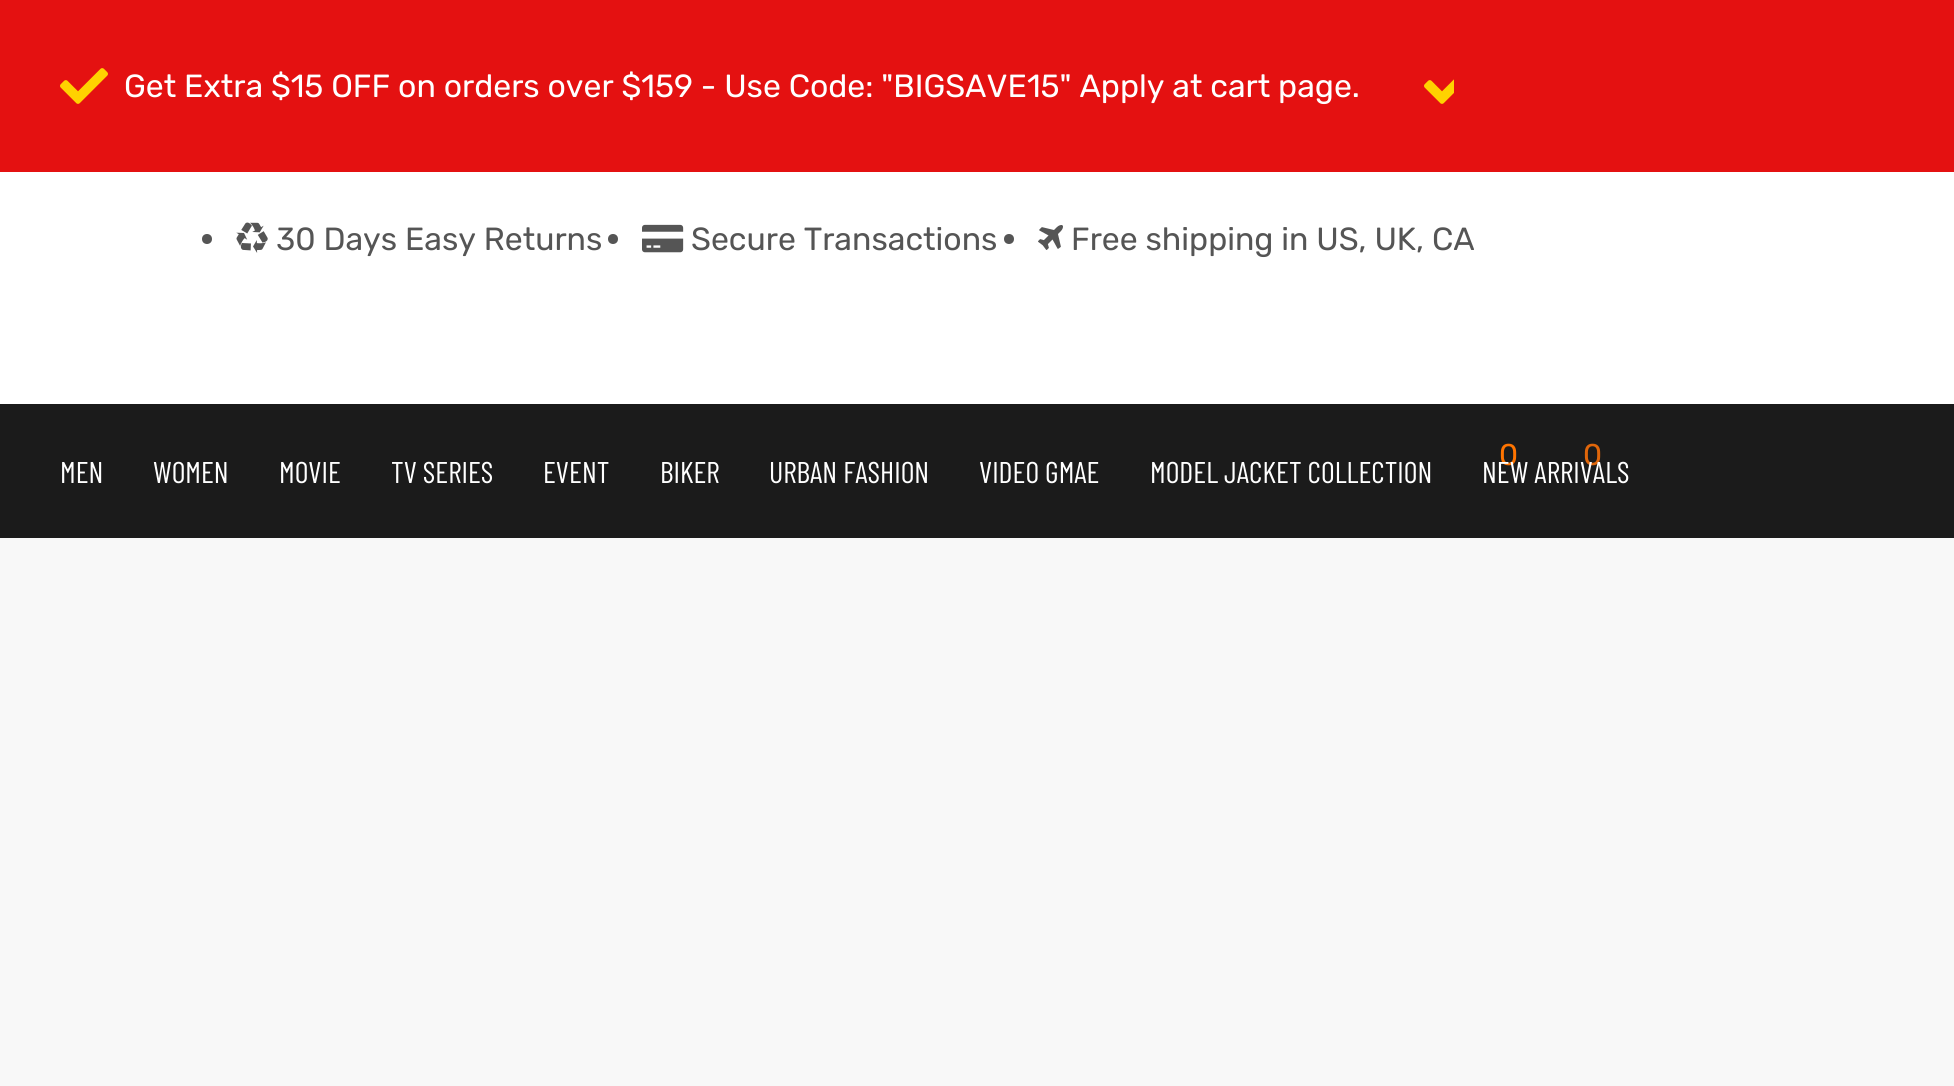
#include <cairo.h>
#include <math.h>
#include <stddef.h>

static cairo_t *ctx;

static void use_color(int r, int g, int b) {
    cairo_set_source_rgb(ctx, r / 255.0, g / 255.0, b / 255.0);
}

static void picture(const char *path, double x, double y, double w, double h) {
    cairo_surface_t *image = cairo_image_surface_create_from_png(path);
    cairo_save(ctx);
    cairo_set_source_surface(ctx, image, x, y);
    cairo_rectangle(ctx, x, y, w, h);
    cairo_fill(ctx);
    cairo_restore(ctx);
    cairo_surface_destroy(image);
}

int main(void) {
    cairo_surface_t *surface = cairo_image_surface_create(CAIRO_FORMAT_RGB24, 1954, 1086);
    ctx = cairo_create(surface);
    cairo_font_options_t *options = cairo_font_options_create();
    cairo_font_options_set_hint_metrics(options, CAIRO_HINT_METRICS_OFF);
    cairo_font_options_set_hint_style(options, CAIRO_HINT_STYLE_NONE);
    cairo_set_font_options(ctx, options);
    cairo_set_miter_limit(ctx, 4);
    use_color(248, 248, 248);
    cairo_paint(ctx);
    use_color(255, 255, 255);
    cairo_rectangle(ctx, 0, 172, 1954, 232);
    cairo_fill(ctx);
    use_color(228, 17, 17);
    cairo_rectangle(ctx, 0, 0, 1954, 172);
    cairo_fill(ctx);
    picture("img1.png", 60, 68, 48, 36);
    cairo_select_font_face(ctx, "Rubik", CAIRO_FONT_SLANT_NORMAL, CAIRO_FONT_WEIGHT_NORMAL);
    cairo_set_font_size(ctx, 32);
    use_color(255, 255, 255);
    cairo_move_to(ctx, 124, 97);
    cairo_show_text(ctx, "Get Extra $15 OFF on orders over $159 - Use Code: \"BIGSAVE15\" Apply at cart page.");
    picture("img2.png", 1424, 79, 30, 25);
    use_color(85, 85, 85);
    cairo_arc(ctx, 207, 239, 5, 0, 2 * M_PI);
    cairo_fill(ctx);
    picture("img3.png", 236, 222, 32, 31);
    cairo_move_to(ctx, 276, 250);
    cairo_show_text(ctx, "30 Days Easy Returns");
    cairo_new_path(ctx);
    cairo_arc(ctx, 613, 239, 5, 0, 2 * M_PI);
    cairo_fill(ctx);
    picture("img4.png", 642, 224, 42, 29);
    cairo_move_to(ctx, 691, 250);
    cairo_show_text(ctx, "Secure Transactions");
    cairo_new_path(ctx);
    cairo_arc(ctx, 1009, 239, 5, 0, 2 * M_PI);
    cairo_fill(ctx);
    picture("img5.png", 1038, 225, 25, 25);
    cairo_move_to(ctx, 1071, 250);
    cairo_show_text(ctx, "Free shipping in US, UK, CA");
    use_color(27, 27, 27);
    cairo_rectangle(ctx, 0, 404, 1954, 134);
    cairo_fill(ctx);
    cairo_set_font_size(ctx, 30);
    use_color(255, 116, 0);
    cairo_move_to(ctx, 1499, 465);
    cairo_show_text(ctx, "0");
    use_color(224, 102, 10);
    cairo_move_to(ctx, 1583, 465);
    cairo_show_text(ctx, "0");
    cairo_select_font_face(ctx, "Barlow Condensed", CAIRO_FONT_SLANT_NORMAL, CAIRO_FONT_WEIGHT_NORMAL);
    use_color(255, 255, 255);
    cairo_move_to(ctx, 60, 483);
    cairo_show_text(ctx, "MEN");
    cairo_move_to(ctx, 153, 483);
    cairo_show_text(ctx, "WOMEN");
    cairo_move_to(ctx, 279, 483);
    cairo_show_text(ctx, "MOVIE");
    cairo_move_to(ctx, 391, 483);
    cairo_show_text(ctx, "TV SERIES");
    cairo_move_to(ctx, 543, 483);
    cairo_show_text(ctx, "EVENT");
    cairo_move_to(ctx, 660, 483);
    cairo_show_text(ctx, "BIKER");
    cairo_move_to(ctx, 769, 483);
    cairo_show_text(ctx, "URBAN FASHION");
    cairo_move_to(ctx, 979, 483);
    cairo_show_text(ctx, "VIDEO GMAE");
    cairo_move_to(ctx, 1150, 483);
    cairo_show_text(ctx, "MODEL JACKET COLLECTION");
    cairo_move_to(ctx, 1482, 483);
    cairo_show_text(ctx, "NEW ARRIVALS");
    cairo_surface_write_to_png(surface, "result.png");
    cairo_font_options_destroy(options);
    cairo_destroy(ctx);
    cairo_surface_destroy(surface);
    return 0;
}
